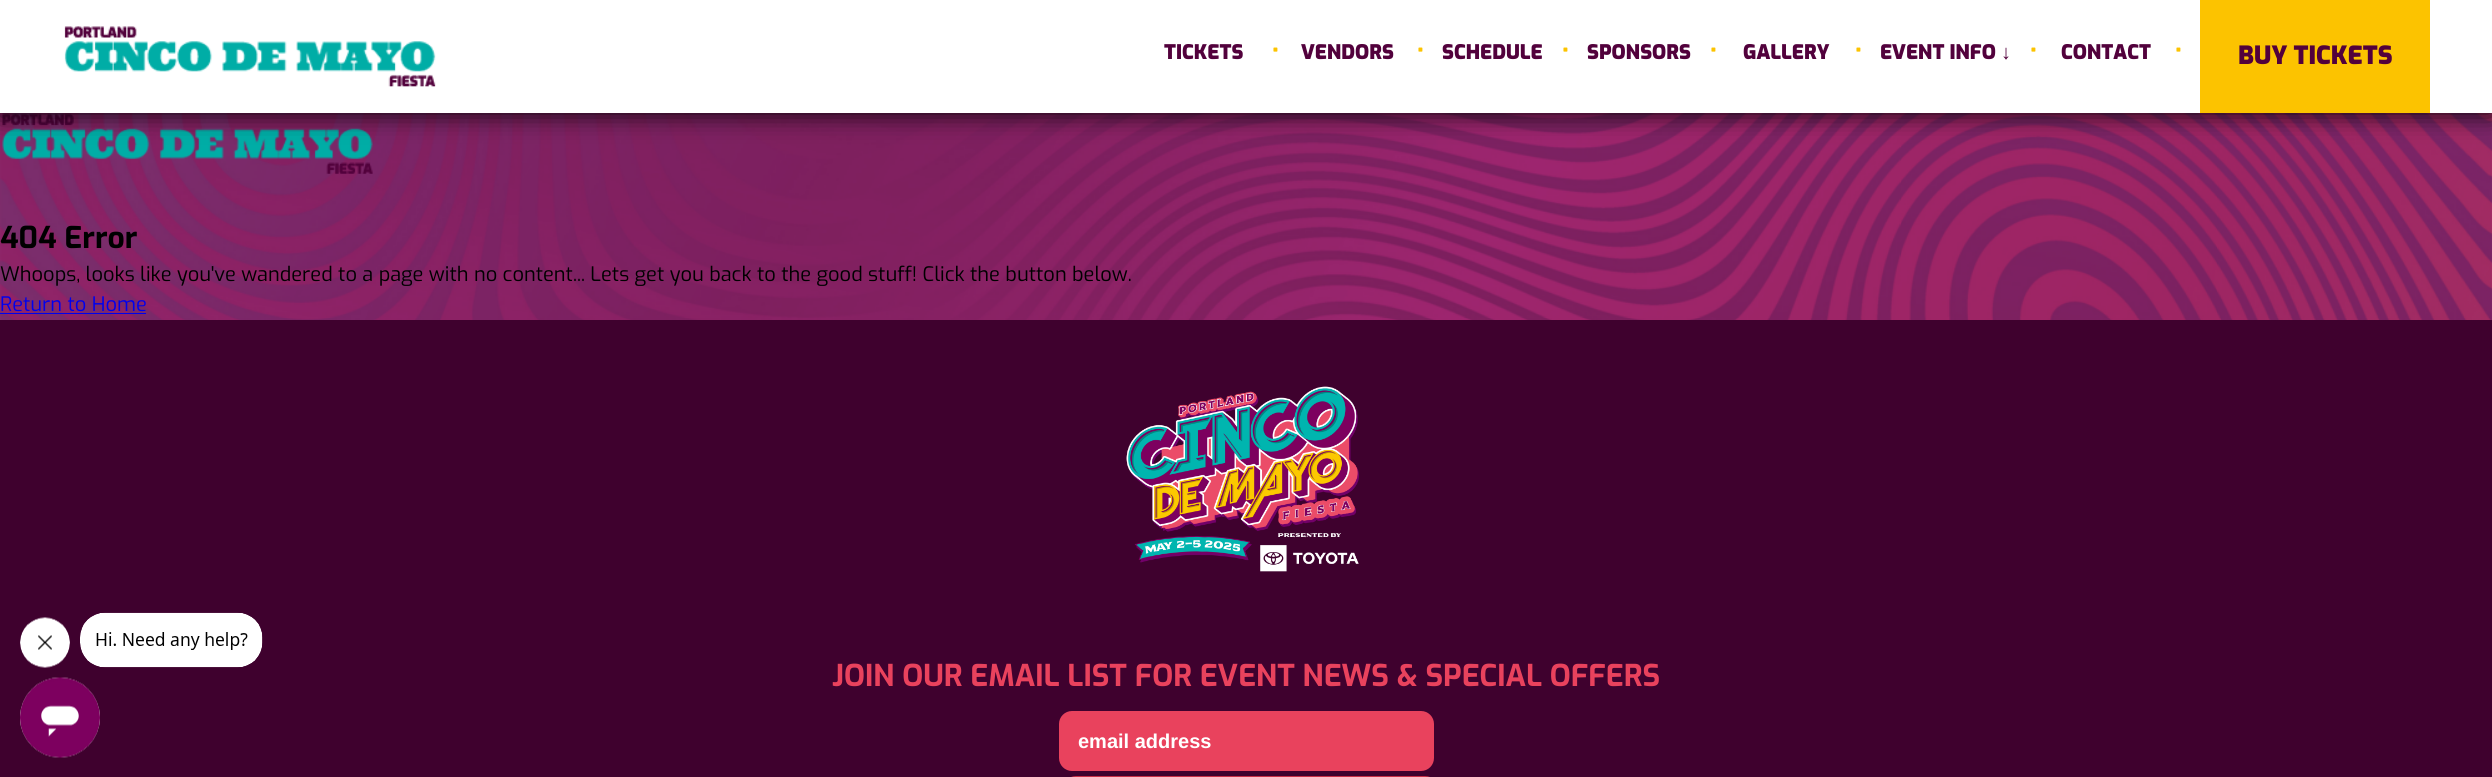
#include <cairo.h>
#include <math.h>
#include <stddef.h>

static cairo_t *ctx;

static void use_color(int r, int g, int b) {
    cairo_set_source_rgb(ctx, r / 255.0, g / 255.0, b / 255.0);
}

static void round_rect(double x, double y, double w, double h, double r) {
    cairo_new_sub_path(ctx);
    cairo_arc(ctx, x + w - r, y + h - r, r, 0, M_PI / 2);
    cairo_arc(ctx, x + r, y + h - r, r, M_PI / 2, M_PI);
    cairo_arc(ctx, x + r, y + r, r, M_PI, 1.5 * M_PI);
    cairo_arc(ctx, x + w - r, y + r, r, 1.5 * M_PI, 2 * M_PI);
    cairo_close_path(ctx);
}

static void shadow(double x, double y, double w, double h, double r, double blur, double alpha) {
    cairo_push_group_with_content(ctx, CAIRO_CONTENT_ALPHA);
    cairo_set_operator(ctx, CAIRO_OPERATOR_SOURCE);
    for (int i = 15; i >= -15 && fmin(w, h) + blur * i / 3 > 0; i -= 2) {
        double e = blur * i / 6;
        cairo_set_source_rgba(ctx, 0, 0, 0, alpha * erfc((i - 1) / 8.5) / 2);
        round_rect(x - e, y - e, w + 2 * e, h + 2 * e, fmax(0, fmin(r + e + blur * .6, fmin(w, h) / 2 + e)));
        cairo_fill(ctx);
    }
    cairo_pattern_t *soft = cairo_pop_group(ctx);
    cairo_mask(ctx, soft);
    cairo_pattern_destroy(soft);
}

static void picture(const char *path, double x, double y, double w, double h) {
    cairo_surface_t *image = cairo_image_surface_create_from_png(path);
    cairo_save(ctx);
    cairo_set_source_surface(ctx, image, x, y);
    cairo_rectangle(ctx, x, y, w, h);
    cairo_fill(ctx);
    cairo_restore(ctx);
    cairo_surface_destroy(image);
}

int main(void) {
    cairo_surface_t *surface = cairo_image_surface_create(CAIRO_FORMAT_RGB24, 2492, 777);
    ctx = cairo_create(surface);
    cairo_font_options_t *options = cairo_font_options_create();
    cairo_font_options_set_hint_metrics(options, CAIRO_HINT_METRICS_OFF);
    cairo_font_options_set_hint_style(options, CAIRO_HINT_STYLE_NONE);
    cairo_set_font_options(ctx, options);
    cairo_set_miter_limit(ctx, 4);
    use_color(255, 255, 255);
    cairo_paint(ctx);
    picture("img2.png", 0, 113, 2492, 207);
    picture("img3.png", 2, 113, 371, 61);
    use_color(0, 0, 0);
    shadow(0, 0, 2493, 113, 0, 12.5, 1);
    use_color(255, 255, 255);
    cairo_rectangle(ctx, 0, 0, 2492, 113);
    cairo_fill(ctx);
    picture("img1.png", 64, 26, 372, 61);
    cairo_select_font_face(ctx, "Exo Black", CAIRO_FONT_SLANT_NORMAL, CAIRO_FONT_WEIGHT_NORMAL);
    cairo_set_font_size(ctx, 20);
    use_color(82, 1, 60);
    cairo_move_to(ctx, 1164, 59);
    cairo_show_text(ctx, "TICKETS");
    cairo_select_font_face(ctx, "Exo", CAIRO_FONT_SLANT_NORMAL, CAIRO_FONT_WEIGHT_BOLD);
    cairo_set_font_size(ctx, 22);
    use_color(252, 195, 0);
    cairo_move_to(ctx, 1272, 58);
    cairo_show_text(ctx, "•");
    cairo_select_font_face(ctx, "Exo Black", CAIRO_FONT_SLANT_NORMAL, CAIRO_FONT_WEIGHT_NORMAL);
    cairo_set_font_size(ctx, 20);
    use_color(82, 1, 60);
    cairo_move_to(ctx, 1301, 59);
    cairo_show_text(ctx, "VENDORS");
    cairo_select_font_face(ctx, "Exo", CAIRO_FONT_SLANT_NORMAL, CAIRO_FONT_WEIGHT_BOLD);
    cairo_set_font_size(ctx, 22);
    use_color(252, 195, 0);
    cairo_move_to(ctx, 1417, 58);
    cairo_show_text(ctx, "•");
    cairo_select_font_face(ctx, "Exo Black", CAIRO_FONT_SLANT_NORMAL, CAIRO_FONT_WEIGHT_NORMAL);
    cairo_set_font_size(ctx, 20);
    use_color(82, 1, 60);
    cairo_move_to(ctx, 1442, 59);
    cairo_show_text(ctx, "SCHEDULE");
    cairo_select_font_face(ctx, "Exo", CAIRO_FONT_SLANT_NORMAL, CAIRO_FONT_WEIGHT_BOLD);
    cairo_set_font_size(ctx, 22);
    use_color(252, 195, 0);
    cairo_move_to(ctx, 1562, 58);
    cairo_show_text(ctx, "•");
    cairo_select_font_face(ctx, "Exo Black", CAIRO_FONT_SLANT_NORMAL, CAIRO_FONT_WEIGHT_NORMAL);
    cairo_set_font_size(ctx, 20);
    use_color(82, 1, 60);
    cairo_move_to(ctx, 1587, 59);
    cairo_show_text(ctx, "SPONSORS");
    cairo_select_font_face(ctx, "Exo", CAIRO_FONT_SLANT_NORMAL, CAIRO_FONT_WEIGHT_BOLD);
    cairo_set_font_size(ctx, 22);
    use_color(252, 195, 0);
    cairo_move_to(ctx, 1710, 58);
    cairo_show_text(ctx, "•");
    cairo_select_font_face(ctx, "Exo Black", CAIRO_FONT_SLANT_NORMAL, CAIRO_FONT_WEIGHT_NORMAL);
    cairo_set_font_size(ctx, 20);
    use_color(82, 1, 60);
    cairo_move_to(ctx, 1743, 59);
    cairo_show_text(ctx, "GALLERY");
    cairo_select_font_face(ctx, "Exo", CAIRO_FONT_SLANT_NORMAL, CAIRO_FONT_WEIGHT_BOLD);
    cairo_set_font_size(ctx, 22);
    use_color(252, 195, 0);
    cairo_move_to(ctx, 1855, 58);
    cairo_show_text(ctx, "•");
    cairo_select_font_face(ctx, "Exo Black", CAIRO_FONT_SLANT_NORMAL, CAIRO_FONT_WEIGHT_NORMAL);
    cairo_set_font_size(ctx, 20);
    use_color(82, 1, 60);
    cairo_move_to(ctx, 1880, 59);
    cairo_show_text(ctx, "EVENT INFO");
    cairo_select_font_face(ctx, "Liberation Sans", CAIRO_FONT_SLANT_NORMAL, CAIRO_FONT_WEIGHT_BOLD);
    cairo_move_to(ctx, 2001, 59);
    cairo_show_text(ctx, "↓");
    cairo_select_font_face(ctx, "Exo", CAIRO_FONT_SLANT_NORMAL, CAIRO_FONT_WEIGHT_BOLD);
    cairo_set_font_size(ctx, 22);
    use_color(252, 195, 0);
    cairo_move_to(ctx, 2030, 58);
    cairo_show_text(ctx, "•");
    cairo_select_font_face(ctx, "Exo Black", CAIRO_FONT_SLANT_NORMAL, CAIRO_FONT_WEIGHT_NORMAL);
    cairo_set_font_size(ctx, 20);
    use_color(82, 1, 60);
    cairo_move_to(ctx, 2061, 59);
    cairo_show_text(ctx, "CONTACT");
    cairo_select_font_face(ctx, "Exo", CAIRO_FONT_SLANT_NORMAL, CAIRO_FONT_WEIGHT_BOLD);
    cairo_set_font_size(ctx, 22);
    use_color(252, 195, 0);
    cairo_move_to(ctx, 2175, 58);
    cairo_show_text(ctx, "•");
    cairo_rectangle(ctx, 2200, 0, 230, 113);
    cairo_fill(ctx);
    cairo_select_font_face(ctx, "Exo Black", CAIRO_FONT_SLANT_NORMAL, CAIRO_FONT_WEIGHT_NORMAL);
    cairo_set_font_size(ctx, 25);
    use_color(82, 1, 60);
    cairo_move_to(ctx, 2238, 64);
    cairo_show_text(ctx, "BUY TICKETS");
    cairo_select_font_face(ctx, "Exo", CAIRO_FONT_SLANT_NORMAL, CAIRO_FONT_WEIGHT_BOLD);
    cairo_set_font_size(ctx, 30);
    use_color(0, 0, 0);
    cairo_move_to(ctx, 0, 248);
    cairo_show_text(ctx, "404 Error");
    cairo_select_font_face(ctx, "Exo", CAIRO_FONT_SLANT_NORMAL, CAIRO_FONT_WEIGHT_NORMAL);
    cairo_set_font_size(ctx, 20);
    cairo_move_to(ctx, 0, 281);
    cairo_show_text(ctx, "Whoops, looks like you've wandered to a page with no content... Lets get you back to the good stuff! Click the button below.");
    use_color(0, 0, 238);
    cairo_move_to(ctx, 0, 311);
    cairo_show_text(ctx, "Return to Home");
    cairo_rectangle(ctx, 0, 313, 146, 1);
    cairo_fill(ctx);
    use_color(63, 1, 46);
    cairo_rectangle(ctx, 0, 320, 2492, 457);
    cairo_fill(ctx);
    picture("img4.png", 20, 617, 50, 51);
    picture("img5.png", 80, 612, 183, 56);
    picture("img6.png", 20, 677, 80, 81);
    picture("img7.png", 1126, 386, 233, 186);
    cairo_select_font_face(ctx, "Exo", CAIRO_FONT_SLANT_NORMAL, CAIRO_FONT_WEIGHT_BOLD);
    cairo_set_font_size(ctx, 30);
    use_color(233, 66, 93);
    cairo_move_to(ctx, 832, 686);
    cairo_show_text(ctx, "JOIN OUR EMAIL LIST FOR EVENT NEWS & SPECIAL OFFERS");
    round_rect(1059, 711, 375, 60, 13);
    cairo_fill(ctx);
    cairo_select_font_face(ctx, "Liberation Sans", CAIRO_FONT_SLANT_NORMAL, CAIRO_FONT_WEIGHT_BOLD);
    cairo_set_font_size(ctx, 20);
    use_color(255, 255, 255);
    cairo_move_to(ctx, 1078, 748);
    cairo_show_text(ctx, "email address");
    use_color(201, 45, 70);
    round_rect(1063, 776, 375, 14, 13);
    cairo_fill(ctx);
    cairo_surface_write_to_png(surface, "result.png");
    cairo_font_options_destroy(options);
    cairo_destroy(ctx);
    cairo_surface_destroy(surface);
    return 0;
}
